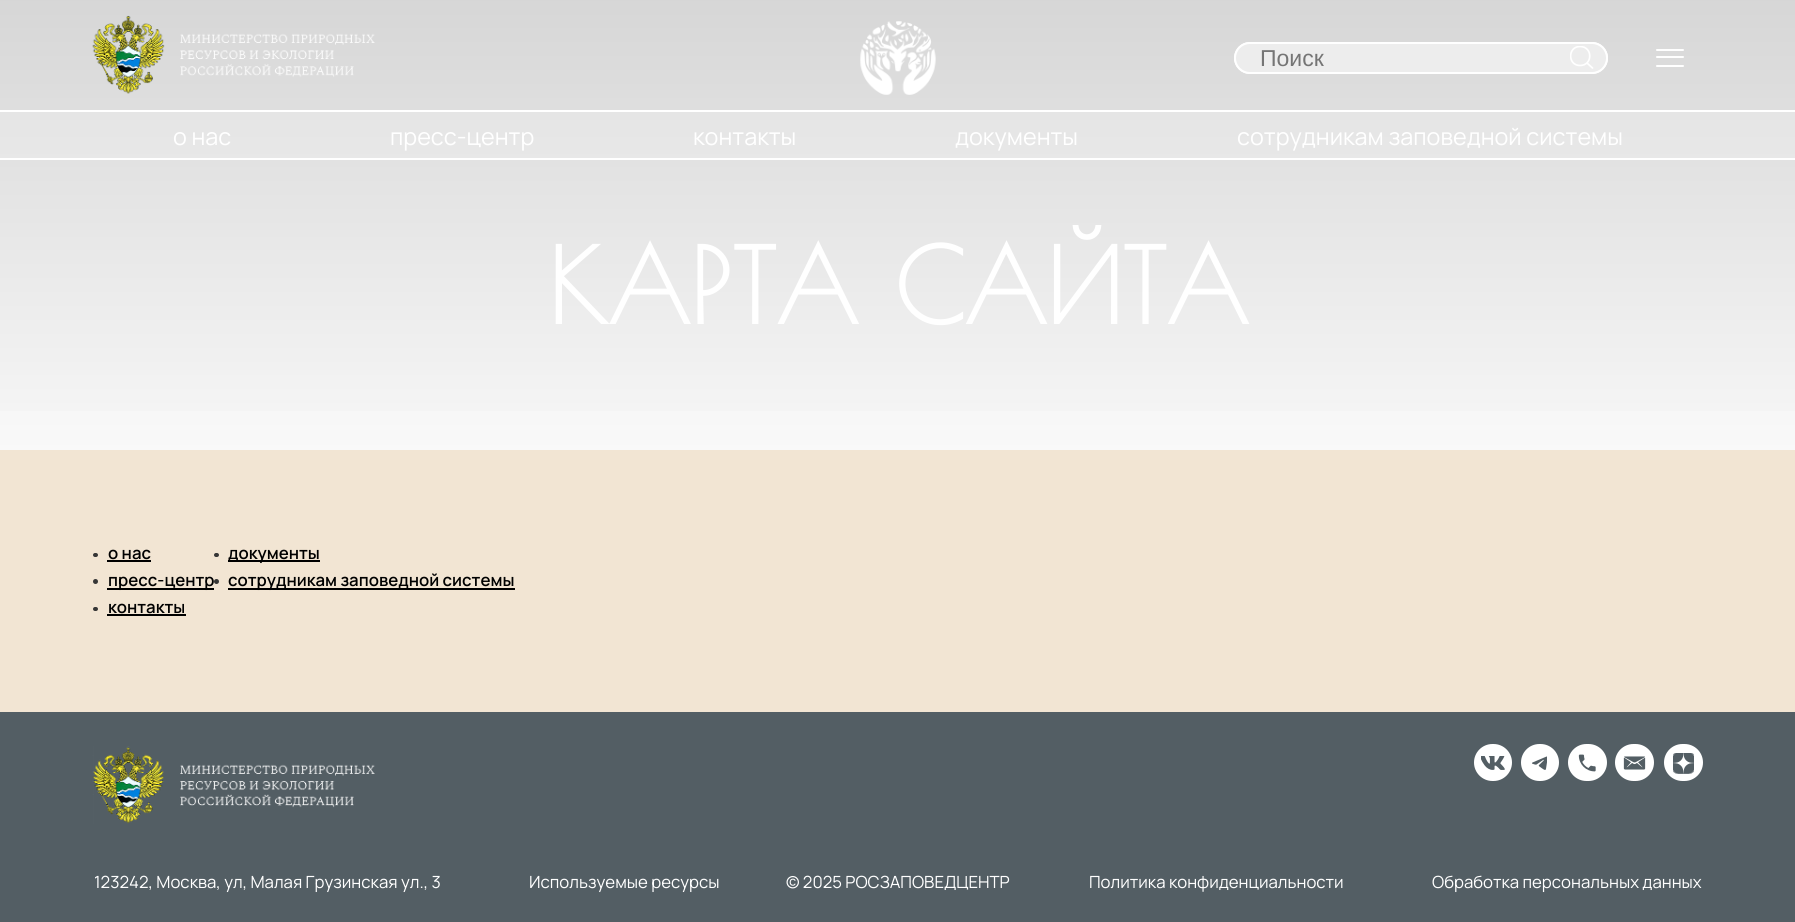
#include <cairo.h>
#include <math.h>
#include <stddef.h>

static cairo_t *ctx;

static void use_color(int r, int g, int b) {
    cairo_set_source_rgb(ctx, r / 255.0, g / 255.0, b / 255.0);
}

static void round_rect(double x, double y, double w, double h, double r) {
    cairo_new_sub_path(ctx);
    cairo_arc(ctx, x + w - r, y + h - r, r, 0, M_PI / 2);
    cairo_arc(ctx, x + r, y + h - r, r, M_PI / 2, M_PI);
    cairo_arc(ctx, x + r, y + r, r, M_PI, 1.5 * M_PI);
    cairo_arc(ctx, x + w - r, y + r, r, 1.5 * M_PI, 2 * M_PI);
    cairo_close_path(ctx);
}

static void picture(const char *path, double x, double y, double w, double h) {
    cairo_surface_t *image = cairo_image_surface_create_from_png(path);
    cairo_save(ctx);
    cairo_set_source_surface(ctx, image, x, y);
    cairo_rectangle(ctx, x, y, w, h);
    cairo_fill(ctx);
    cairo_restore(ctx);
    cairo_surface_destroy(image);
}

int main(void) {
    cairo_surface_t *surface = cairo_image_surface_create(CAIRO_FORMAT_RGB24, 1795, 922);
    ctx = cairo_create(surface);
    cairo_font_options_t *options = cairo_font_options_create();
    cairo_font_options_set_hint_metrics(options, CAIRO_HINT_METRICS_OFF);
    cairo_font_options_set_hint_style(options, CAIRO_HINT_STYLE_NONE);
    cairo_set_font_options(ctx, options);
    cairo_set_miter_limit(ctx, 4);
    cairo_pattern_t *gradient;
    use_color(242, 229, 211);
    cairo_paint(ctx);
    gradient = cairo_pattern_create_linear(898, -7, 898, 453);
    cairo_pattern_add_color_stop_rgba(gradient, 0, 0.839, 0.839, 0.839, 1);
    cairo_pattern_add_color_stop_rgba(gradient, 1, 0.969, 0.969, 0.969, 1);
    cairo_set_source(ctx, gradient);
    cairo_pattern_destroy(gradient);
    cairo_rectangle(ctx, 0, 0, 1795, 411);
    cairo_fill(ctx);
    use_color(255, 255, 255);
    cairo_rectangle(ctx, 0, 110, 1795, 2);
    cairo_fill(ctx);
    picture("img1.png", 92, 15, 283, 79);
    picture("img2.png", 860, 21, 76, 74);
    round_rect(1234, 42, 374, 32, 16);
    cairo_fill(ctx);
    cairo_set_source_rgba(ctx, 0.659, 0.659, 0.659, 0.2);
    round_rect(1235, 43, 372, 30, 15);
    cairo_fill_preserve(ctx);
    use_color(255, 255, 255);
    cairo_stroke(ctx);
    cairo_select_font_face(ctx, "Liberation Sans", CAIRO_FONT_SLANT_NORMAL, CAIRO_FONT_WEIGHT_NORMAL);
    cairo_set_font_size(ctx, 23);
    use_color(117, 117, 117);
    cairo_move_to(ctx, 1260, 66);
    cairo_show_text(ctx, "Поиск");
    cairo_save(ctx);
    cairo_rectangle(ctx, 1570, 46, 24, 24);
    cairo_clip(ctx);
    cairo_new_path(ctx);
    cairo_move_to(ctx, 1580, 65.5);
    cairo_curve_to(ctx, 1593, 65.5, 1593, 46.5, 1580, 46.5);
    cairo_curve_to(ctx, 1567.5, 46.5, 1567.5, 65.5, 1580, 65.5);
    cairo_close_path(ctx);
    cairo_move_to(ctx, 1592.5, 68);
    cairo_line_to(ctx, 1587, 63);
    use_color(255, 255, 255);
    cairo_set_line_width(ctx, 1.7);
    cairo_set_line_cap(ctx, CAIRO_LINE_CAP_ROUND);
    cairo_set_line_join(ctx, CAIRO_LINE_JOIN_ROUND);
    cairo_stroke(ctx);
    cairo_restore(ctx);
    use_color(255, 255, 255);
    round_rect(1656, 49, 28, 2, 1);
    cairo_fill(ctx);
    round_rect(1656, 65, 28, 2, 1);
    cairo_fill(ctx);
    round_rect(1656, 56, 28, 2, 1);
    cairo_fill(ctx);
    cairo_rectangle(ctx, 0, 158, 1795, 2);
    cairo_fill(ctx);
    gradient = cairo_pattern_create_linear(898, -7, 898, 453);
    cairo_pattern_add_color_stop_rgba(gradient, 0, 0.871, 0.871, 0.871, 1);
    cairo_pattern_add_color_stop_rgba(gradient, 1, 0.976, 0.976, 0.976, 1);
    cairo_set_source(ctx, gradient);
    cairo_pattern_destroy(gradient);
    cairo_rectangle(ctx, 0, 112, 1795, 46);
    cairo_fill(ctx);
    cairo_select_font_face(ctx, "Manrope", CAIRO_FONT_SLANT_NORMAL, CAIRO_FONT_WEIGHT_NORMAL);
    cairo_set_font_size(ctx, 23.4);
    use_color(255, 255, 255);
    cairo_move_to(ctx, 173, 145);
    cairo_show_text(ctx, "о нас");
    cairo_move_to(ctx, 390, 145);
    cairo_show_text(ctx, "пресс-центр");
    cairo_move_to(ctx, 693, 145);
    cairo_show_text(ctx, "контакты");
    cairo_move_to(ctx, 955, 145);
    cairo_show_text(ctx, "документы");
    cairo_move_to(ctx, 1237, 145);
    cairo_show_text(ctx, "сотрудникам заповедной системы");
    gradient = cairo_pattern_create_linear(898, -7, 898, 453);
    cairo_pattern_add_color_stop_rgba(gradient, 0, 0.886, 0.886, 0.886, 1);
    cairo_pattern_add_color_stop_rgba(gradient, 1, 0.976, 0.976, 0.976, 1);
    cairo_set_source(ctx, gradient);
    cairo_pattern_destroy(gradient);
    cairo_rectangle(ctx, 0, 411, 1795, 39);
    cairo_fill(ctx);
    cairo_select_font_face(ctx, "Poiret One", CAIRO_FONT_SLANT_NORMAL, CAIRO_FONT_WEIGHT_BOLD);
    cairo_set_font_size(ctx, 103);
    use_color(255, 255, 255);
    cairo_move_to(ctx, 548, 324);
    cairo_show_text(ctx, "КАРТА САЙТА");
    use_color(54, 54, 54);
    round_rect(93, 553, 5, 4, 2);
    cairo_fill(ctx);
    cairo_select_font_face(ctx, "Manrope SemiBold", CAIRO_FONT_SLANT_NORMAL, CAIRO_FONT_WEIGHT_NORMAL);
    cairo_set_font_size(ctx, 16.8);
    use_color(0, 0, 0);
    cairo_move_to(ctx, 108, 559);
    cairo_show_text(ctx, "о нас");
    cairo_rectangle(ctx, 107, 560, 44, 2);
    cairo_fill(ctx);
    use_color(54, 54, 54);
    cairo_arc(ctx, 95.5, 581.5, 2.5, 0, 2 * M_PI);
    cairo_fill(ctx);
    use_color(0, 0, 0);
    cairo_rectangle(ctx, 107, 588, 107, 2);
    cairo_fill(ctx);
    cairo_move_to(ctx, 108, 586);
    cairo_show_text(ctx, "пресс-центр");
    use_color(54, 54, 54);
    round_rect(93, 607, 5, 4, 2);
    cairo_fill(ctx);
    use_color(0, 0, 0);
    cairo_move_to(ctx, 108, 613);
    cairo_show_text(ctx, "контакты");
    cairo_rectangle(ctx, 107, 614, 79, 2);
    cairo_fill(ctx);
    use_color(54, 54, 54);
    round_rect(214, 553, 5, 4, 2);
    cairo_fill(ctx);
    use_color(0, 0, 0);
    cairo_rectangle(ctx, 228, 560, 92, 2);
    cairo_fill(ctx);
    cairo_move_to(ctx, 228, 559);
    cairo_show_text(ctx, "документы");
    use_color(54, 54, 54);
    cairo_new_path(ctx);
    cairo_arc(ctx, 216.5, 581.5, 2.5, 0, 2 * M_PI);
    cairo_fill(ctx);
    use_color(0, 0, 0);
    cairo_rectangle(ctx, 228, 588, 287, 2);
    cairo_fill(ctx);
    cairo_move_to(ctx, 228, 586);
    cairo_show_text(ctx, "сотрудникам заповедной системы");
    use_color(83, 94, 100);
    cairo_rectangle(ctx, 0, 712, 1795, 210);
    cairo_fill(ctx);
    picture("img3.png", 92, 746, 283, 78);
    use_color(255, 255, 255);
    round_rect(1474, 744, 38, 37, 18.5);
    cairo_fill(ctx);
    picture("img4.png", 1481, 756, 24, 14);
    round_rect(1521, 744, 38, 37, 18.5);
    cairo_fill(ctx);
    picture("img5.png", 1532, 756, 15, 14);
    round_rect(1568, 744, 39, 37, 18.5);
    cairo_fill(ctx);
    picture("img6.png", 1578, 754, 18, 18);
    round_rect(1615, 744, 39, 37, 18.5);
    cairo_fill(ctx);
    picture("img7.png", 1623, 756, 23, 14);
    round_rect(1664, 744, 39, 37, 18.5);
    cairo_fill(ctx);
    picture("img8.png", 1673, 753, 21, 21);
    cairo_select_font_face(ctx, "Manrope", CAIRO_FONT_SLANT_NORMAL, CAIRO_FONT_WEIGHT_NORMAL);
    cairo_move_to(ctx, 94, 888);
    cairo_show_text(ctx, "123242, Москва, ул, Малая Грузинская ул., 3");
    cairo_move_to(ctx, 529, 888);
    cairo_show_text(ctx, "Используемые ресурсы");
    cairo_move_to(ctx, 786, 888);
    cairo_show_text(ctx, "© 2025 РОСЗАПОВЕДЦЕНТР");
    cairo_move_to(ctx, 1089, 888);
    cairo_show_text(ctx, "Политика конфиденциальности");
    cairo_move_to(ctx, 1432, 888);
    cairo_show_text(ctx, "Обработка персональных данных");
    cairo_surface_write_to_png(surface, "result.png");
    cairo_font_options_destroy(options);
    cairo_destroy(ctx);
    cairo_surface_destroy(surface);
    return 0;
}
